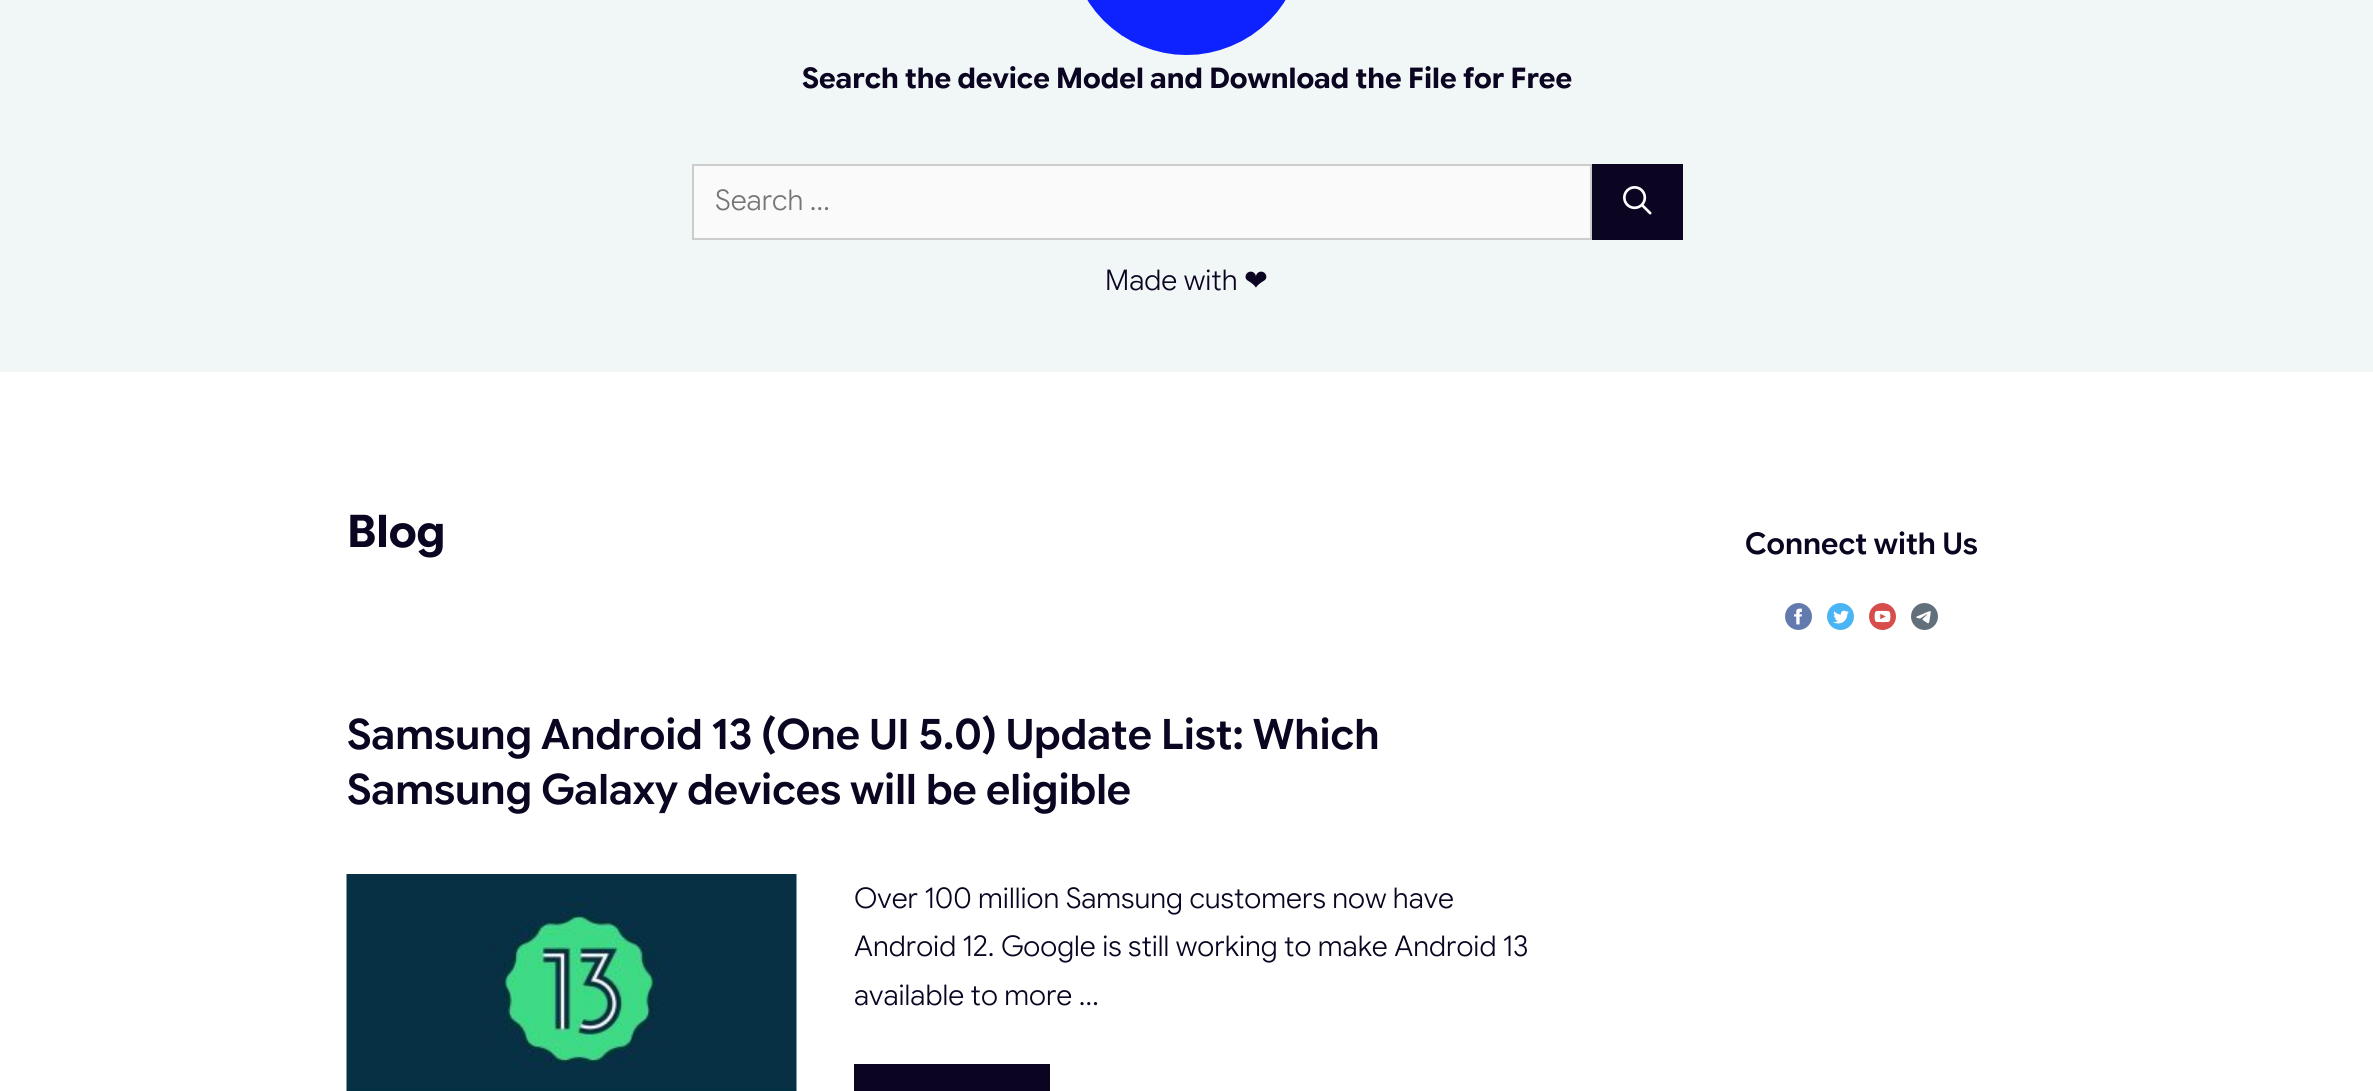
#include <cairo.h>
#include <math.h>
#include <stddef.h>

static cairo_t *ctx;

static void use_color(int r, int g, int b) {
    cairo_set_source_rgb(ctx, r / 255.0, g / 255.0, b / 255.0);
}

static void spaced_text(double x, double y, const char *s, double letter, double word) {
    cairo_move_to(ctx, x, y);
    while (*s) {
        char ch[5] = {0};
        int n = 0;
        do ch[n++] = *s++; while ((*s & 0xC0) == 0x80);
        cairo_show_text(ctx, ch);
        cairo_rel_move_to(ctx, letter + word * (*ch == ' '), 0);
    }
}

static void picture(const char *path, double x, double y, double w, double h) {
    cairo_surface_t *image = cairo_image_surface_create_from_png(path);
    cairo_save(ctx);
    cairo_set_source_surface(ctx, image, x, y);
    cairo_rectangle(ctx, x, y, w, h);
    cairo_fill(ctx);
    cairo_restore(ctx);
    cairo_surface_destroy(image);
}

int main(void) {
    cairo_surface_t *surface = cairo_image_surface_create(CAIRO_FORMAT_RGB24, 2373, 1091);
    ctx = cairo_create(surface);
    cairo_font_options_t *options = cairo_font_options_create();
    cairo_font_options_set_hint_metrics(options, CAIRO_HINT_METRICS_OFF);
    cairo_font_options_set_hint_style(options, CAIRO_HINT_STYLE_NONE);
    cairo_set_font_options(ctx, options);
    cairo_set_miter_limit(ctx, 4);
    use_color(255, 255, 255);
    cairo_paint(ctx);
    use_color(241, 246, 247);
    cairo_rectangle(ctx, 0, 0, 2373, 372);
    cairo_fill(ctx);
    picture("img1.png", 1087, 0, 199, 55);
    cairo_select_font_face(ctx, "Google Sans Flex", CAIRO_FONT_SLANT_NORMAL, CAIRO_FONT_WEIGHT_BOLD);
    cairo_set_font_size(ctx, 28.5);
    use_color(11, 5, 33);
    cairo_move_to(ctx, 802, 88);
    cairo_show_text(ctx, "Search the device Model and Download the File for Free");
    use_color(250, 250, 250);
    cairo_rectangle(ctx, 693, 165, 898, 74);
    cairo_fill_preserve(ctx);
    use_color(204, 204, 204);
    cairo_stroke(ctx);
    cairo_select_font_face(ctx, "Google Sans Flex Light", CAIRO_FONT_SLANT_NORMAL, CAIRO_FONT_WEIGHT_NORMAL);
    use_color(117, 117, 117);
    cairo_move_to(ctx, 715, 210);
    cairo_show_text(ctx, "Search …");
    use_color(11, 5, 33);
    cairo_rectangle(ctx, 1592, 164, 91, 76);
    cairo_fill(ctx);
    picture("img2.png", 1623, 186, 29, 29);
    cairo_move_to(ctx, 1105, 290);
    cairo_show_text(ctx, "Made with");
    cairo_select_font_face(ctx, "DejaVu Sans", CAIRO_FONT_SLANT_NORMAL, CAIRO_FONT_WEIGHT_NORMAL);
    cairo_move_to(ctx, 1244, 290);
    cairo_show_text(ctx, "❤");
    cairo_select_font_face(ctx, "Google Sans Flex", CAIRO_FONT_SLANT_NORMAL, CAIRO_FONT_WEIGHT_BOLD);
    cairo_set_font_size(ctx, 45);
    cairo_move_to(ctx, 347, 547);
    cairo_show_text(ctx, "Blog");
    cairo_select_font_face(ctx, "Google Sans Flex SemiBold", CAIRO_FONT_SLANT_NORMAL, CAIRO_FONT_WEIGHT_NORMAL);
    cairo_set_font_size(ctx, 42);
    spaced_text(347, 749, "Samsung Android 13 (One UI 5.0) Update List: Which", 0, -0.25);
    cairo_move_to(ctx, 347, 804);
    cairo_show_text(ctx, "Samsung Galaxy devices will be eligible");
    picture("img3.png", 346, 874, 451, 217);
    cairo_select_font_face(ctx, "Google Sans Flex Light", CAIRO_FONT_SLANT_NORMAL, CAIRO_FONT_WEIGHT_NORMAL);
    cairo_set_font_size(ctx, 28.5);
    cairo_move_to(ctx, 854, 908);
    cairo_show_text(ctx, "Over 100 million Samsung customers now have");
    cairo_move_to(ctx, 854, 956);
    cairo_show_text(ctx, "Android 12. Google is still working to make Android 13");
    cairo_move_to(ctx, 854, 1005);
    cairo_show_text(ctx, "available to more …");
    cairo_rectangle(ctx, 854, 1064, 196, 27);
    cairo_fill(ctx);
    cairo_select_font_face(ctx, "Google Sans Flex SemiBold", CAIRO_FONT_SLANT_NORMAL, CAIRO_FONT_WEIGHT_NORMAL);
    cairo_set_font_size(ctx, 30);
    cairo_move_to(ctx, 1745, 554);
    cairo_show_text(ctx, "Connect with Us");
    picture("img4.png", 1785, 603, 27, 27);
    picture("img5.png", 1827, 603, 27, 27);
    picture("img6.png", 1869, 603, 27, 27);
    picture("img7.png", 1911, 603, 27, 27);
    cairo_surface_write_to_png(surface, "result.png");
    cairo_font_options_destroy(options);
    cairo_destroy(ctx);
    cairo_surface_destroy(surface);
    return 0;
}
